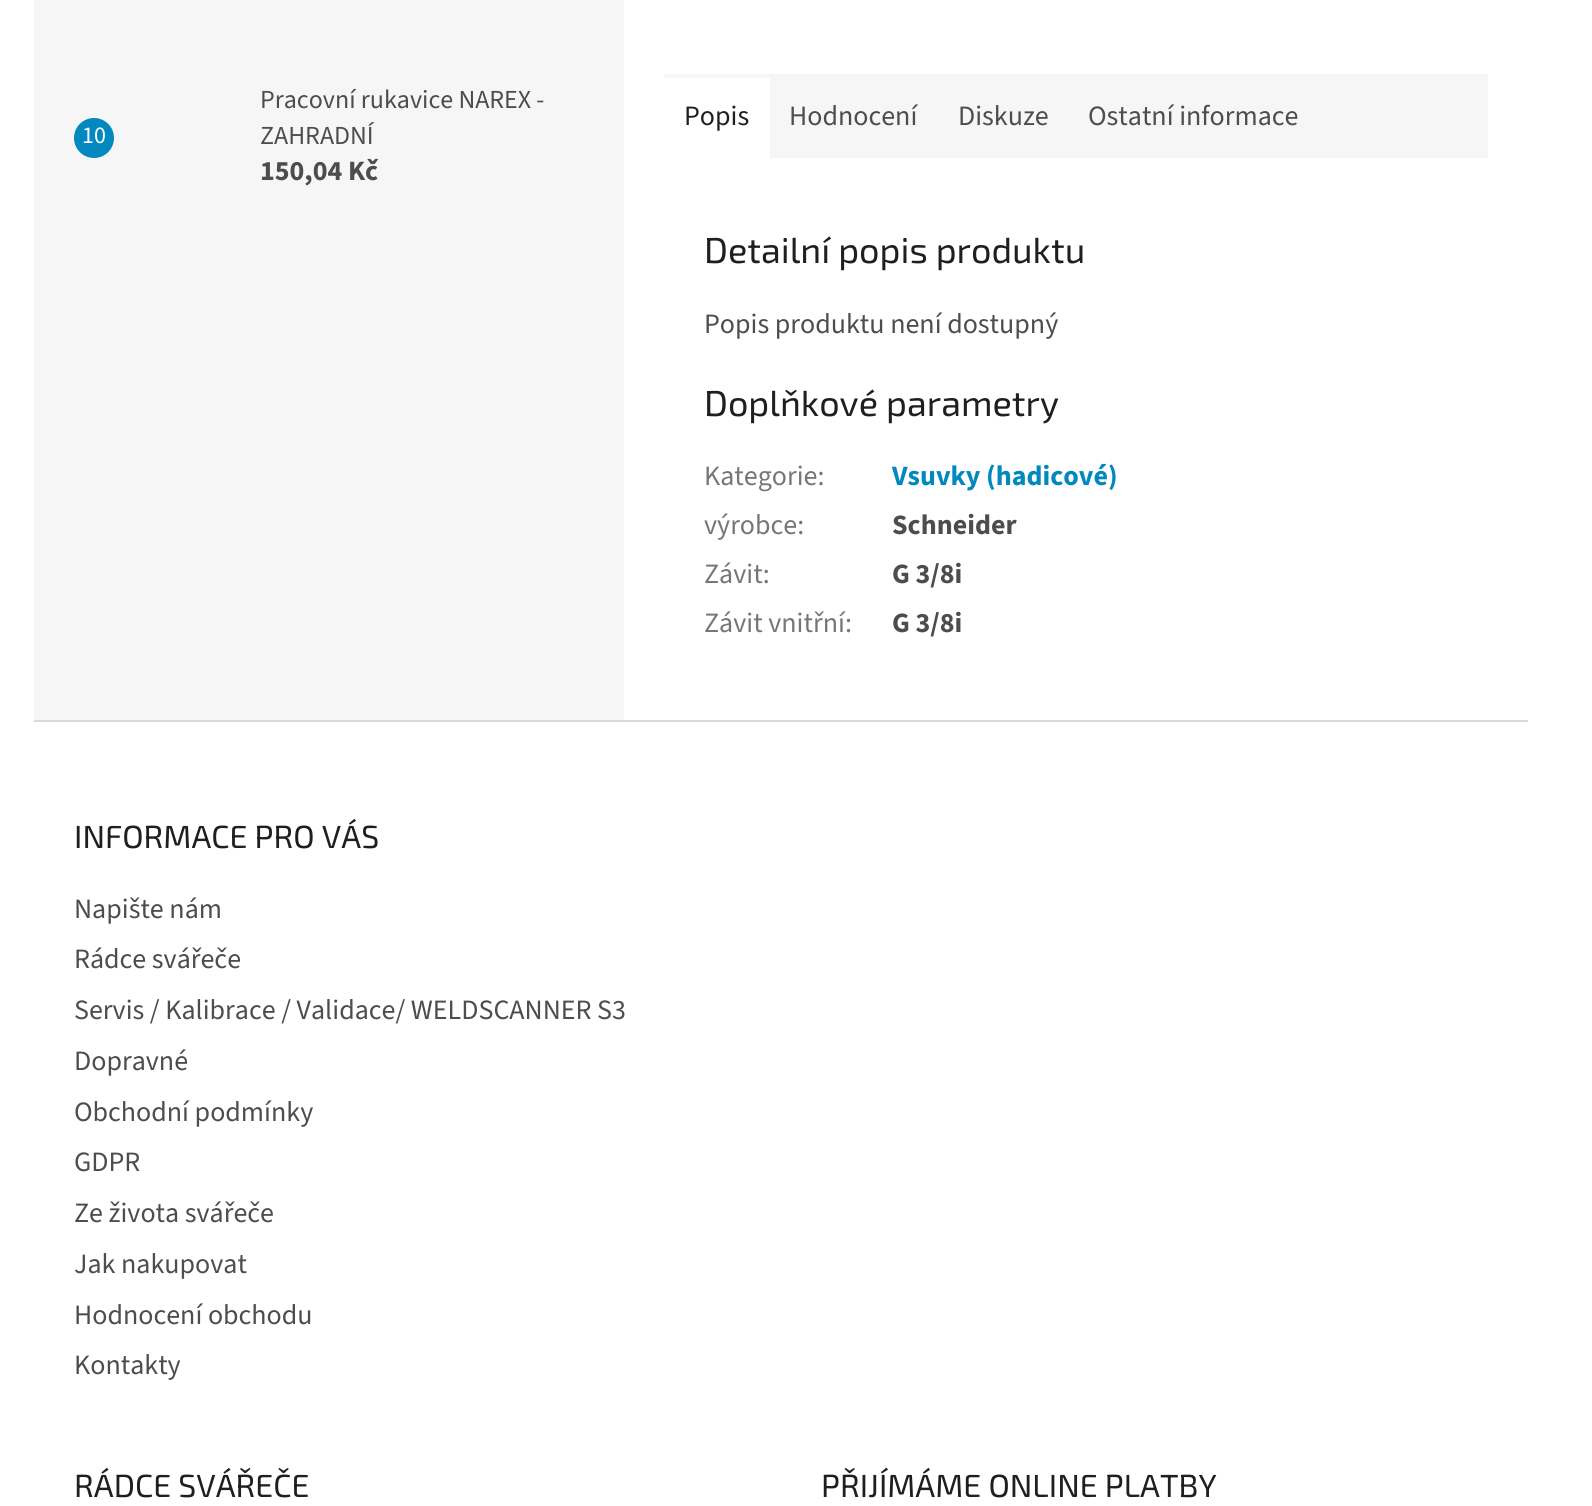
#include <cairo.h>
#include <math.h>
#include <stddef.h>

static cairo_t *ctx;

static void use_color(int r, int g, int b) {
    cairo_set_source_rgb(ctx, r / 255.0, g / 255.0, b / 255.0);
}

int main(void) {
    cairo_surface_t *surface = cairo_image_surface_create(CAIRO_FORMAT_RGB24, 1592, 1506);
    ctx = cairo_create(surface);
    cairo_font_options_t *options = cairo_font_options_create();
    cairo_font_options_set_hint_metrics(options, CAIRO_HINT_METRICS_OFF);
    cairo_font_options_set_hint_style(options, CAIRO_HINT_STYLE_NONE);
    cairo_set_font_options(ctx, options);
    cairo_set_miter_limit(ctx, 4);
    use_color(255, 255, 255);
    cairo_paint(ctx);
    use_color(246, 246, 246);
    cairo_rectangle(ctx, 34, 0, 590, 720);
    cairo_fill(ctx);
    use_color(0, 136, 191);
    cairo_arc(ctx, 94, 138, 20, 0, 2 * M_PI);
    cairo_fill(ctx);
    cairo_select_font_face(ctx, "Source Sans 3", CAIRO_FONT_SLANT_NORMAL, CAIRO_FONT_WEIGHT_NORMAL);
    cairo_set_font_size(ctx, 24);
    use_color(255, 255, 255);
    cairo_move_to(ctx, 82, 143);
    cairo_show_text(ctx, "10");
    cairo_set_font_size(ctx, 26);
    use_color(77, 77, 77);
    cairo_move_to(ctx, 260, 108);
    cairo_show_text(ctx, "Pracovní rukavice NAREX -");
    cairo_move_to(ctx, 260, 144);
    cairo_show_text(ctx, "ZAHRADNÍ");
    cairo_select_font_face(ctx, "Source Sans 3", CAIRO_FONT_SLANT_NORMAL, CAIRO_FONT_WEIGHT_BOLD);
    cairo_set_font_size(ctx, 28);
    cairo_move_to(ctx, 260, 180);
    cairo_show_text(ctx, "150,04 Kč");
    use_color(246, 246, 246);
    cairo_rectangle(ctx, 770, 74, 718, 84);
    cairo_fill(ctx);
    cairo_rectangle(ctx, 664, 74, 106, 4);
    cairo_fill(ctx);
    cairo_select_font_face(ctx, "Source Sans 3", CAIRO_FONT_SLANT_NORMAL, CAIRO_FONT_WEIGHT_NORMAL);
    use_color(31, 31, 31);
    cairo_move_to(ctx, 684, 125);
    cairo_show_text(ctx, "Popis");
    use_color(77, 77, 77);
    cairo_move_to(ctx, 789, 125);
    cairo_show_text(ctx, "Hodnocení");
    cairo_move_to(ctx, 958, 125);
    cairo_show_text(ctx, "Diskuze");
    cairo_move_to(ctx, 1088, 125);
    cairo_show_text(ctx, "Ostatní informace");
    cairo_select_font_face(ctx, "Exo 2", CAIRO_FONT_SLANT_NORMAL, CAIRO_FONT_WEIGHT_NORMAL);
    cairo_set_font_size(ctx, 36);
    use_color(31, 31, 31);
    cairo_move_to(ctx, 704, 263);
    cairo_show_text(ctx, "Detailní popis produktu");
    cairo_select_font_face(ctx, "Source Sans 3", CAIRO_FONT_SLANT_NORMAL, CAIRO_FONT_WEIGHT_NORMAL);
    cairo_set_font_size(ctx, 28);
    use_color(77, 77, 77);
    cairo_move_to(ctx, 704, 333);
    cairo_show_text(ctx, "Popis produktu není dostupný");
    cairo_select_font_face(ctx, "Exo 2", CAIRO_FONT_SLANT_NORMAL, CAIRO_FONT_WEIGHT_NORMAL);
    cairo_set_font_size(ctx, 36);
    use_color(31, 31, 31);
    cairo_move_to(ctx, 704, 416);
    cairo_show_text(ctx, "Doplňkové parametry");
    cairo_select_font_face(ctx, "Source Sans 3", CAIRO_FONT_SLANT_NORMAL, CAIRO_FONT_WEIGHT_NORMAL);
    cairo_set_font_size(ctx, 28);
    use_color(118, 118, 118);
    cairo_move_to(ctx, 704, 485);
    cairo_show_text(ctx, "Kategorie:");
    cairo_select_font_face(ctx, "Source Sans 3", CAIRO_FONT_SLANT_NORMAL, CAIRO_FONT_WEIGHT_BOLD);
    use_color(0, 136, 191);
    cairo_move_to(ctx, 892, 485);
    cairo_show_text(ctx, "Vsuvky (hadicové)");
    cairo_select_font_face(ctx, "Source Sans 3", CAIRO_FONT_SLANT_NORMAL, CAIRO_FONT_WEIGHT_NORMAL);
    use_color(118, 118, 118);
    cairo_move_to(ctx, 704, 534);
    cairo_show_text(ctx, "výrobce:");
    cairo_select_font_face(ctx, "Source Sans 3", CAIRO_FONT_SLANT_NORMAL, CAIRO_FONT_WEIGHT_BOLD);
    use_color(77, 77, 77);
    cairo_move_to(ctx, 892, 534);
    cairo_show_text(ctx, "Schneider");
    cairo_select_font_face(ctx, "Source Sans 3", CAIRO_FONT_SLANT_NORMAL, CAIRO_FONT_WEIGHT_NORMAL);
    use_color(118, 118, 118);
    cairo_move_to(ctx, 704, 583);
    cairo_show_text(ctx, "Závit:");
    cairo_select_font_face(ctx, "Source Sans 3", CAIRO_FONT_SLANT_NORMAL, CAIRO_FONT_WEIGHT_BOLD);
    use_color(77, 77, 77);
    cairo_move_to(ctx, 892, 583);
    cairo_show_text(ctx, "G 3/8i");
    cairo_select_font_face(ctx, "Source Sans 3", CAIRO_FONT_SLANT_NORMAL, CAIRO_FONT_WEIGHT_NORMAL);
    use_color(118, 118, 118);
    cairo_move_to(ctx, 704, 632);
    cairo_show_text(ctx, "Závit vnitřní:");
    cairo_select_font_face(ctx, "Source Sans 3", CAIRO_FONT_SLANT_NORMAL, CAIRO_FONT_WEIGHT_BOLD);
    use_color(77, 77, 77);
    cairo_move_to(ctx, 892, 632);
    cairo_show_text(ctx, "G 3/8i");
    use_color(218, 218, 218);
    cairo_rectangle(ctx, 34, 720, 1494, 2);
    cairo_fill(ctx);
    cairo_select_font_face(ctx, "Exo 2", CAIRO_FONT_SLANT_NORMAL, CAIRO_FONT_WEIGHT_NORMAL);
    cairo_set_font_size(ctx, 32);
    use_color(31, 31, 31);
    cairo_move_to(ctx, 74, 848);
    cairo_show_text(ctx, "INFORMACE PRO VÁS");
    cairo_select_font_face(ctx, "Source Sans 3", CAIRO_FONT_SLANT_NORMAL, CAIRO_FONT_WEIGHT_NORMAL);
    cairo_set_font_size(ctx, 28);
    use_color(77, 77, 77);
    cairo_move_to(ctx, 74, 918);
    cairo_show_text(ctx, "Napište nám");
    cairo_move_to(ctx, 74, 968);
    cairo_show_text(ctx, "Rádce svářeče");
    cairo_move_to(ctx, 74, 1019);
    cairo_show_text(ctx, "Servis / Kalibrace / Validace/ WELDSCANNER S3");
    cairo_move_to(ctx, 74, 1070);
    cairo_show_text(ctx, "Dopravné");
    cairo_move_to(ctx, 74, 1121);
    cairo_show_text(ctx, "Obchodní podmínky");
    cairo_move_to(ctx, 74, 1171);
    cairo_show_text(ctx, "GDPR");
    cairo_move_to(ctx, 74, 1222);
    cairo_show_text(ctx, "Ze života svářeče");
    cairo_move_to(ctx, 74, 1273);
    cairo_show_text(ctx, "Jak nakupovat");
    cairo_move_to(ctx, 74, 1324);
    cairo_show_text(ctx, "Hodnocení obchodu");
    cairo_move_to(ctx, 74, 1374);
    cairo_show_text(ctx, "Kontakty");
    cairo_select_font_face(ctx, "Exo 2", CAIRO_FONT_SLANT_NORMAL, CAIRO_FONT_WEIGHT_NORMAL);
    cairo_set_font_size(ctx, 32);
    use_color(31, 31, 31);
    cairo_move_to(ctx, 74, 1497);
    cairo_show_text(ctx, "RÁDCE SVÁŘEČE");
    cairo_move_to(ctx, 821, 1497);
    cairo_show_text(ctx, "PŘIJÍMÁME ONLINE PLATBY");
    cairo_surface_write_to_png(surface, "result.png");
    cairo_font_options_destroy(options);
    cairo_destroy(ctx);
    cairo_surface_destroy(surface);
    return 0;
}
